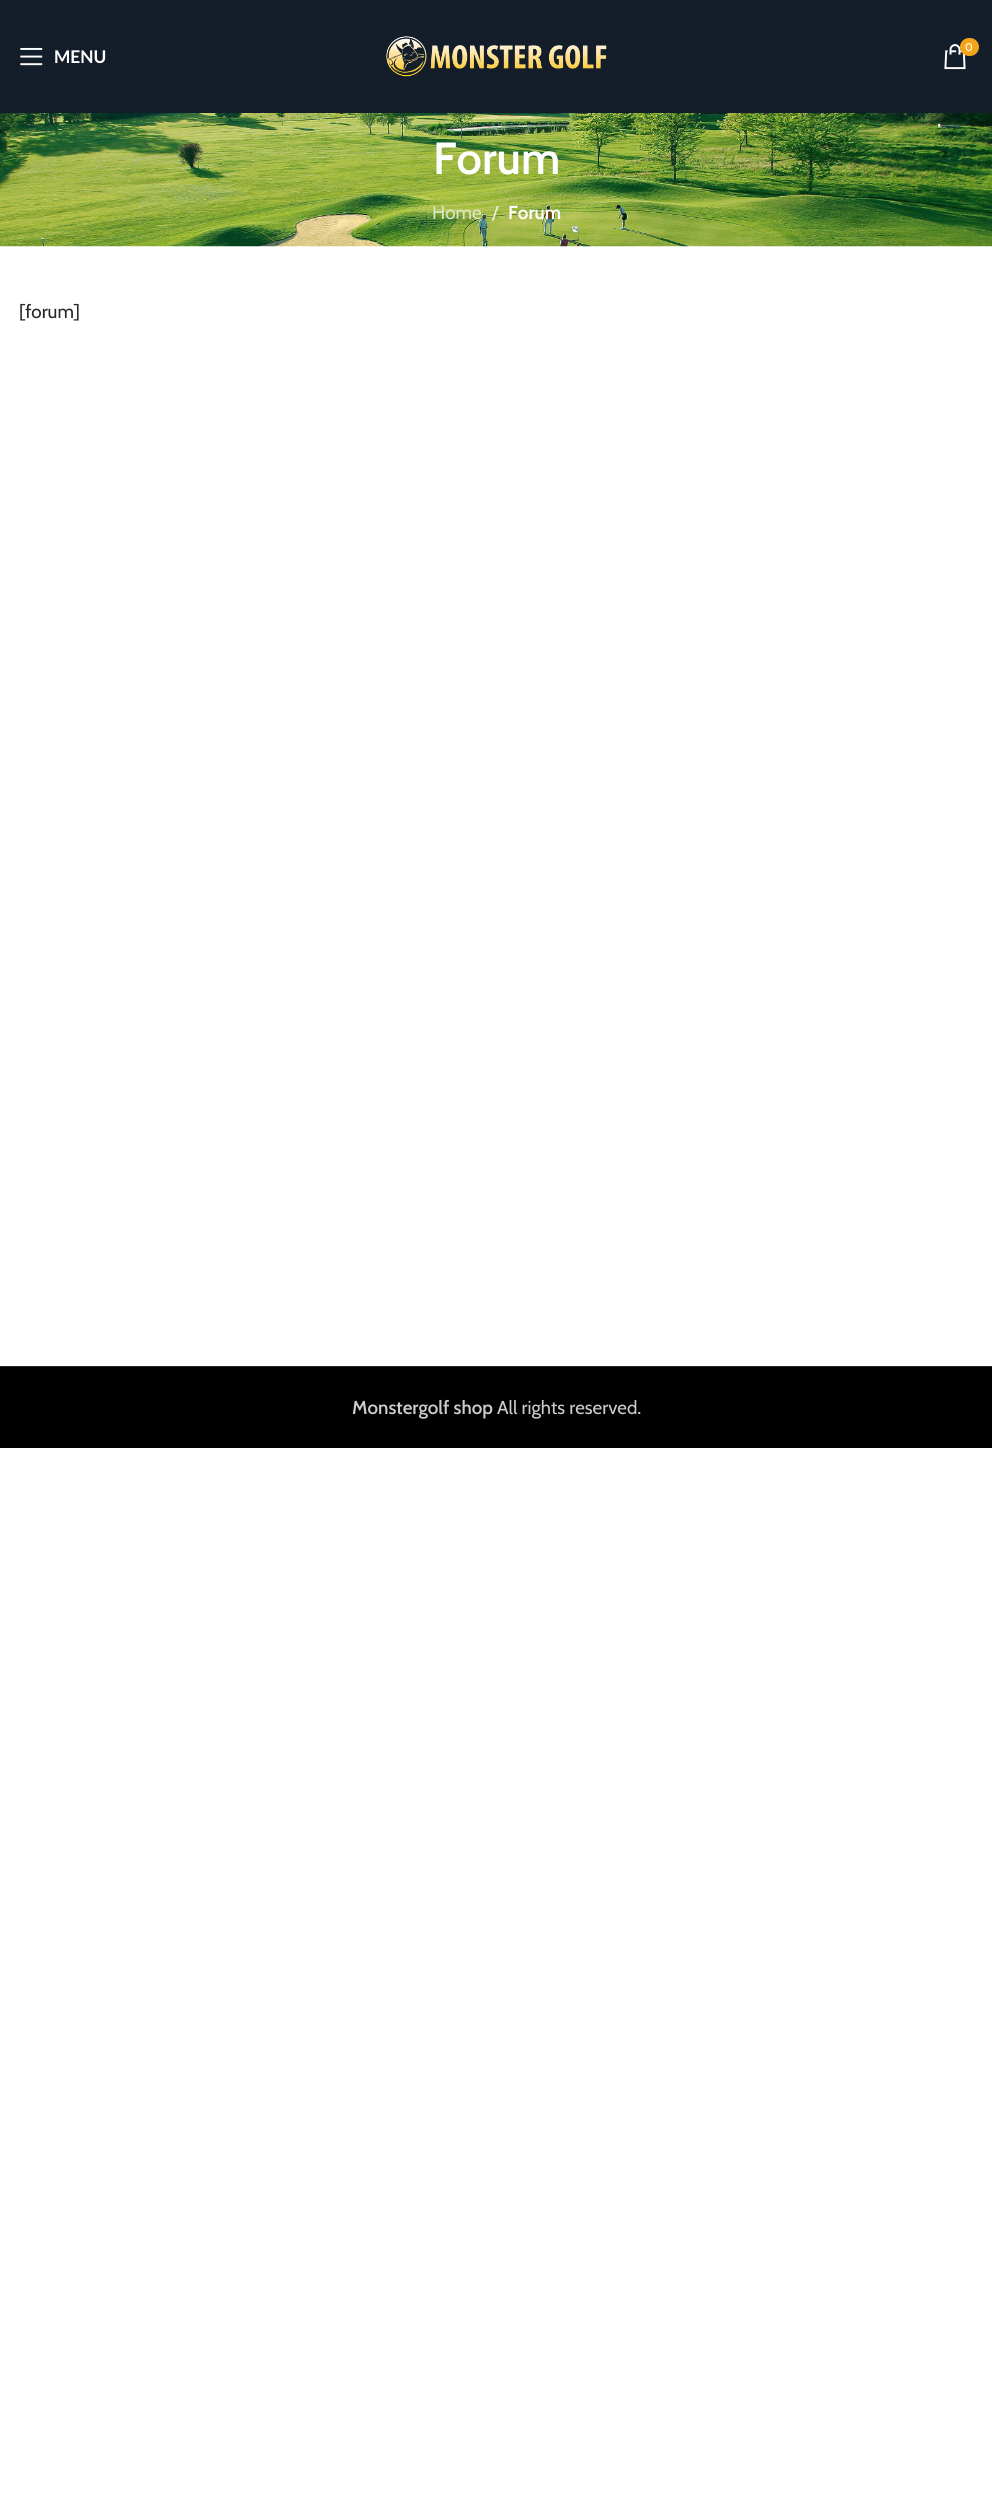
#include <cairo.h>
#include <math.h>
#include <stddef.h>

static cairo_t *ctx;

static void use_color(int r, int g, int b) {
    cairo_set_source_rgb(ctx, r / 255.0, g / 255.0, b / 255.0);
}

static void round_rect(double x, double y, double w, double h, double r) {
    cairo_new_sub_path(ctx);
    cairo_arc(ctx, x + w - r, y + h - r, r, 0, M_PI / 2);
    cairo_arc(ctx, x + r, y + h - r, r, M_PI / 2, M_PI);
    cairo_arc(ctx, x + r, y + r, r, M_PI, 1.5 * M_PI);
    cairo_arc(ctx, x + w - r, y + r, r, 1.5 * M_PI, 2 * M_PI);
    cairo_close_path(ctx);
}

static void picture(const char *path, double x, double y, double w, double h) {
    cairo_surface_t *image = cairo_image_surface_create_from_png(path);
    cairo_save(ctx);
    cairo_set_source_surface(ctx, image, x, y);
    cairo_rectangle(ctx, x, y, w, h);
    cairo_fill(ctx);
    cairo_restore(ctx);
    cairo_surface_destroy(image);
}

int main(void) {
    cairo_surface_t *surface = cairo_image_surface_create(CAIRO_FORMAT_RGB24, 992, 2507);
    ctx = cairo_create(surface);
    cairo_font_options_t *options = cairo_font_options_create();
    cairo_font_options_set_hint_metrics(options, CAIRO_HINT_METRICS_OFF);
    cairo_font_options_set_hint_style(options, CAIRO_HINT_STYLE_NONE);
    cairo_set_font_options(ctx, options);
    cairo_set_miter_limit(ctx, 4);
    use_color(255, 255, 255);
    cairo_paint(ctx);
    use_color(20, 29, 42);
    cairo_rectangle(ctx, 0, 0, 992, 113);
    cairo_fill(ctx);
    picture("img1.png", 386, 36, 221, 41);
    picture("img2.png", 944, 44, 22, 26);
    use_color(244, 165, 28);
    round_rect(960, 38, 19, 18, 9);
    cairo_fill(ctx);
    cairo_select_font_face(ctx, "Cabin", CAIRO_FONT_SLANT_NORMAL, CAIRO_FONT_WEIGHT_NORMAL);
    cairo_set_font_size(ctx, 11);
    use_color(255, 255, 255);
    cairo_move_to(ctx, 965, 51);
    cairo_show_text(ctx, "0");
    picture("img3.png", 20, 47, 23, 19);
    cairo_select_font_face(ctx, "Lato", CAIRO_FONT_SLANT_NORMAL, CAIRO_FONT_WEIGHT_BOLD);
    cairo_set_font_size(ctx, 17.5);
    cairo_move_to(ctx, 54, 63);
    cairo_show_text(ctx, "MENU");
    picture("img4.png", 0, 113, 992, 134);
    cairo_select_font_face(ctx, "Cabin SemiBold", CAIRO_FONT_SLANT_NORMAL, CAIRO_FONT_WEIGHT_NORMAL);
    cairo_set_font_size(ctx, 45);
    cairo_move_to(ctx, 433, 174);
    cairo_show_text(ctx, "Forum");
    cairo_select_font_face(ctx, "Cabin", CAIRO_FONT_SLANT_NORMAL, CAIRO_FONT_WEIGHT_NORMAL);
    cairo_set_font_size(ctx, 18.75);
    use_color(222, 231, 200);
    cairo_move_to(ctx, 432, 219);
    cairo_show_text(ctx, "Home");
    use_color(236, 241, 218);
    cairo_move_to(ctx, 492, 219);
    cairo_show_text(ctx, "/");
    cairo_select_font_face(ctx, "Cabin SemiBold", CAIRO_FONT_SLANT_NORMAL, CAIRO_FONT_WEIGHT_NORMAL);
    use_color(255, 255, 255);
    cairo_move_to(ctx, 508, 219);
    cairo_show_text(ctx, "Forum");
    cairo_select_font_face(ctx, "Cabin", CAIRO_FONT_SLANT_NORMAL, CAIRO_FONT_WEIGHT_NORMAL);
    use_color(38, 38, 38);
    cairo_move_to(ctx, 19, 318);
    cairo_show_text(ctx, "[forum]");
    use_color(0, 0, 0);
    cairo_rectangle(ctx, 0, 1367, 992, 81);
    cairo_fill(ctx);
    use_color(38, 38, 38);
    cairo_rectangle(ctx, 0, 1366, 992, 1);
    cairo_fill(ctx);
    cairo_select_font_face(ctx, "Cabin SemiBold", CAIRO_FONT_SLANT_NORMAL, CAIRO_FONT_WEIGHT_NORMAL);
    use_color(204, 204, 204);
    cairo_move_to(ctx, 352, 1414);
    cairo_show_text(ctx, "Monstergolf shop");
    cairo_select_font_face(ctx, "Cabin", CAIRO_FONT_SLANT_NORMAL, CAIRO_FONT_WEIGHT_NORMAL);
    cairo_move_to(ctx, 497, 1414);
    cairo_show_text(ctx, "All rights reserved.");
    cairo_surface_write_to_png(surface, "result.png");
    cairo_font_options_destroy(options);
    cairo_destroy(ctx);
    cairo_surface_destroy(surface);
    return 0;
}
